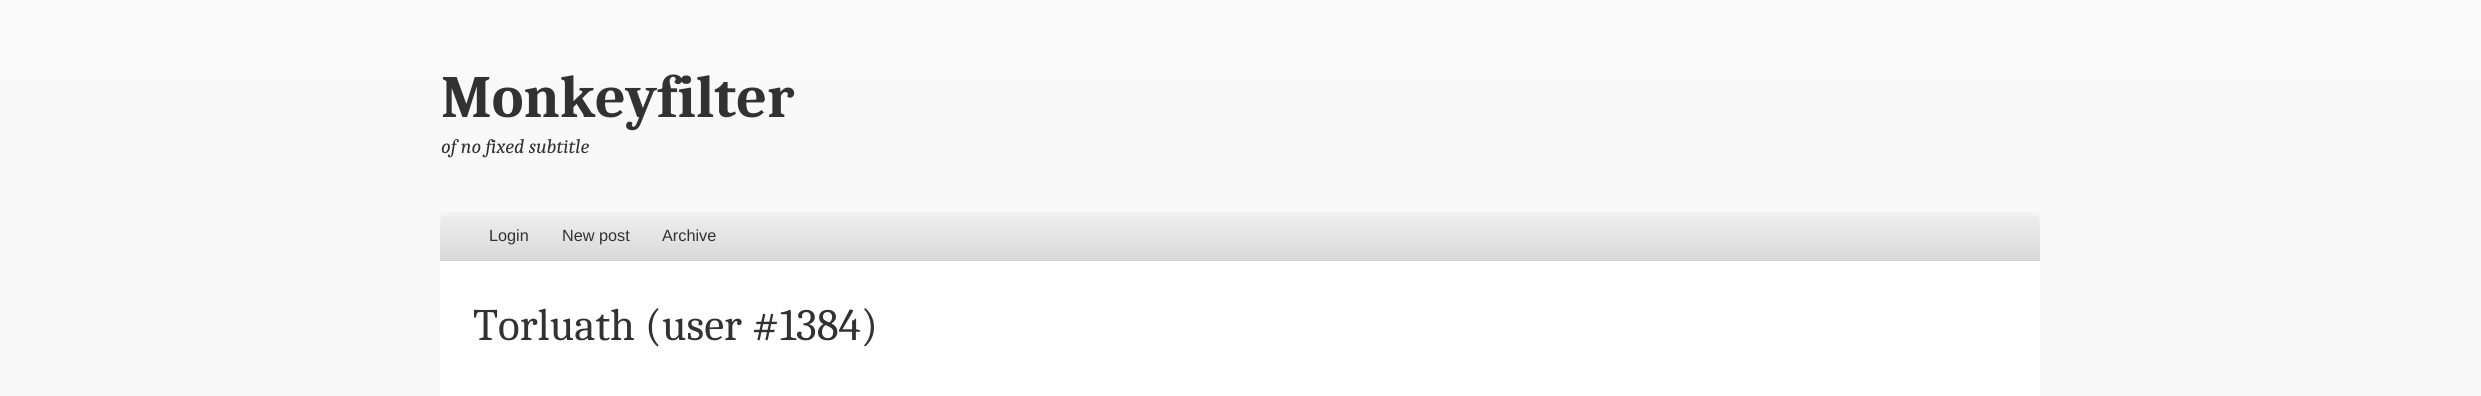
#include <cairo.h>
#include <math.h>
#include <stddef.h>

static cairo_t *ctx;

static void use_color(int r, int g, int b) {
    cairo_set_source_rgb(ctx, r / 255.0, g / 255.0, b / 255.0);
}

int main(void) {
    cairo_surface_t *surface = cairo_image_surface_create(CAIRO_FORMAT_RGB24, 2481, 396);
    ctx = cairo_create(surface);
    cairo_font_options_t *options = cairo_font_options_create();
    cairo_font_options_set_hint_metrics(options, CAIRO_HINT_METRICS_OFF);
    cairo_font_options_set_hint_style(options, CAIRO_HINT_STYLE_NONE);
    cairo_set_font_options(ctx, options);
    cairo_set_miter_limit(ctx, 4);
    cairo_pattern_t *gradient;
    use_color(255, 255, 255);
    cairo_paint(ctx);
    gradient = cairo_pattern_create_linear(1241, 0, 1241, 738);
    cairo_pattern_add_color_stop_rgba(gradient, 0, 0.98, 0.98, 0.98, 1);
    cairo_pattern_add_color_stop_rgba(gradient, 1, 0.965, 0.965, 0.965, 1);
    cairo_set_source(ctx, gradient);
    cairo_pattern_destroy(gradient);
    cairo_rectangle(ctx, 0, 0, 2481, 396);
    cairo_fill(ctx);
    cairo_select_font_face(ctx, "Caladea", CAIRO_FONT_SLANT_NORMAL, CAIRO_FONT_WEIGHT_BOLD);
    cairo_set_font_size(ctx, 60);
    use_color(50, 50, 50);
    cairo_move_to(ctx, 441, 117);
    cairo_show_text(ctx, "Monkeyfilter");
    cairo_select_font_face(ctx, "Caladea", CAIRO_FONT_SLANT_ITALIC, CAIRO_FONT_WEIGHT_NORMAL);
    cairo_set_font_size(ctx, 20);
    cairo_move_to(ctx, 441, 153);
    cairo_show_text(ctx, "of no fixed subtitle");
    use_color(255, 255, 255);
    cairo_new_path(ctx);
    cairo_move_to(ctx, 444, 213);
    cairo_line_to(ctx, 2036, 213);
    cairo_curve_to(ctx, 2038, 213, 2040, 215, 2040, 217);
    cairo_line_to(ctx, 2040, 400);
    cairo_line_to(ctx, 440, 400);
    cairo_line_to(ctx, 440, 217);
    cairo_curve_to(ctx, 440, 215, 442, 213, 444, 213);
    cairo_close_path(ctx);
    cairo_fill(ctx);
    use_color(240, 240, 240);
    cairo_new_path(ctx);
    cairo_move_to(ctx, 444, 213);
    cairo_line_to(ctx, 2036, 213);
    cairo_curve_to(ctx, 2038, 213, 2040, 215, 2040, 217);
    cairo_line_to(ctx, 2040, 261);
    cairo_line_to(ctx, 440, 261);
    cairo_line_to(ctx, 440, 217);
    cairo_curve_to(ctx, 440, 215, 442, 213, 444, 213);
    cairo_close_path(ctx);
    cairo_fill(ctx);
    gradient = cairo_pattern_create_linear(1240, 212, 1240, 261);
    cairo_pattern_add_color_stop_rgba(gradient, 0, 0.941, 0.941, 0.941, 0.8);
    cairo_pattern_add_color_stop_rgba(gradient, 1, 0.824, 0.824, 0.824, 0.8);
    cairo_set_source(ctx, gradient);
    cairo_pattern_destroy(gradient);
    cairo_new_path(ctx);
    cairo_move_to(ctx, 444, 213);
    cairo_line_to(ctx, 2036, 213);
    cairo_curve_to(ctx, 2038, 213, 2040, 215, 2040, 217);
    cairo_line_to(ctx, 2040, 261);
    cairo_line_to(ctx, 440, 261);
    cairo_line_to(ctx, 440, 217);
    cairo_curve_to(ctx, 440, 215, 442, 213, 444, 213);
    cairo_close_path(ctx);
    cairo_fill(ctx);
    use_color(206, 206, 206);
    cairo_rectangle(ctx, 440, 260, 1600, 1);
    cairo_fill(ctx);
    cairo_set_source_rgba(ctx, 0.98, 0.98, 0.98, 0.8);
    cairo_new_path(ctx);
    cairo_move_to(ctx, 444, 215);
    cairo_line_to(ctx, 2036, 215);
    cairo_curve_to(ctx, 2038, 215, 2040, 217, 2040, 219);
    cairo_curve_to(ctx, 2040, 216, 2040, 213, 2036, 213);
    cairo_line_to(ctx, 444, 213);
    cairo_curve_to(ctx, 440, 213, 440, 216, 440, 219);
    cairo_curve_to(ctx, 440, 217, 442, 215, 444, 215);
    cairo_close_path(ctx);
    cairo_fill(ctx);
    use_color(234, 234, 234);
    cairo_new_path(ctx);
    cairo_move_to(ctx, 444, 214);
    cairo_line_to(ctx, 2036, 214);
    cairo_curve_to(ctx, 2038, 214, 2040, 215, 2040, 218);
    cairo_line_to(ctx, 2040, 217);
    cairo_curve_to(ctx, 2040, 215, 2038, 213, 2036, 213);
    cairo_line_to(ctx, 444, 213);
    cairo_curve_to(ctx, 442, 213, 440, 215, 440, 217);
    cairo_line_to(ctx, 440, 218);
    cairo_curve_to(ctx, 440, 215, 442, 214, 444, 214);
    cairo_close_path(ctx);
    cairo_fill(ctx);
    cairo_select_font_face(ctx, "Liberation Sans", CAIRO_FONT_SLANT_NORMAL, CAIRO_FONT_WEIGHT_NORMAL);
    cairo_set_font_size(ctx, 16.25);
    use_color(50, 50, 50);
    cairo_move_to(ctx, 489, 241);
    cairo_show_text(ctx, "Login");
    cairo_move_to(ctx, 562, 241);
    cairo_show_text(ctx, "New post");
    cairo_move_to(ctx, 662, 241);
    cairo_show_text(ctx, "Archive");
    cairo_select_font_face(ctx, "Caladea", CAIRO_FONT_SLANT_NORMAL, CAIRO_FONT_WEIGHT_NORMAL);
    cairo_set_font_size(ctx, 45);
    cairo_move_to(ctx, 473, 340);
    cairo_show_text(ctx, "Torluath (user #1384)");
    cairo_surface_write_to_png(surface, "result.png");
    cairo_font_options_destroy(options);
    cairo_destroy(ctx);
    cairo_surface_destroy(surface);
    return 0;
}
